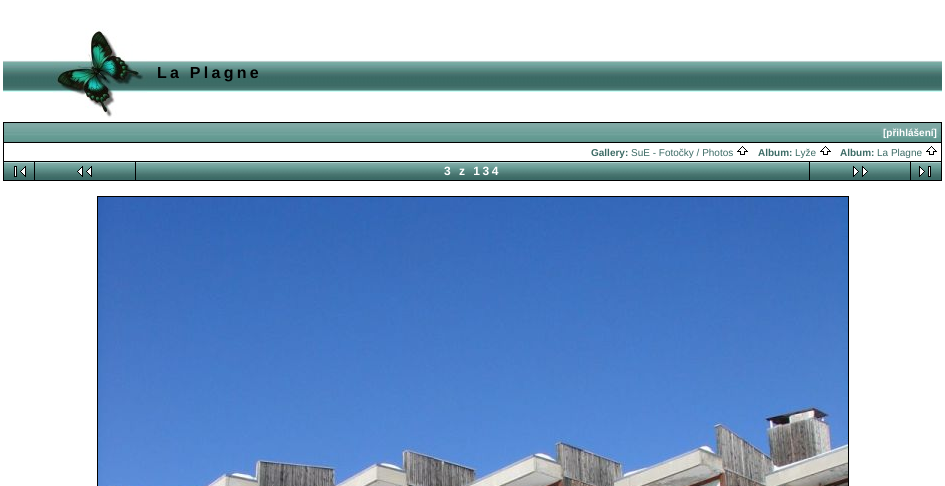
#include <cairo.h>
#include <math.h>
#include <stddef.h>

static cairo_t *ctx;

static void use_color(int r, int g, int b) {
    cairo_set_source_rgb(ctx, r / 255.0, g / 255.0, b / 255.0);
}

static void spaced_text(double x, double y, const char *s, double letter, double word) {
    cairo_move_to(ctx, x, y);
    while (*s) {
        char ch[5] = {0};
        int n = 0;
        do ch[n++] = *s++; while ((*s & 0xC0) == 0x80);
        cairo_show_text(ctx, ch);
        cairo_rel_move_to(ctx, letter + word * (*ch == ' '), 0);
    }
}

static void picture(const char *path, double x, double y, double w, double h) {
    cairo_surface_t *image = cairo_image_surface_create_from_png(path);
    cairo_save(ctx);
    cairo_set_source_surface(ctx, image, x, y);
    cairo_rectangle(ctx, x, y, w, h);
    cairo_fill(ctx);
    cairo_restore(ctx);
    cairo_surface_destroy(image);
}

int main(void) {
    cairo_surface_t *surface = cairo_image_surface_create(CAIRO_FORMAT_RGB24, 945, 486);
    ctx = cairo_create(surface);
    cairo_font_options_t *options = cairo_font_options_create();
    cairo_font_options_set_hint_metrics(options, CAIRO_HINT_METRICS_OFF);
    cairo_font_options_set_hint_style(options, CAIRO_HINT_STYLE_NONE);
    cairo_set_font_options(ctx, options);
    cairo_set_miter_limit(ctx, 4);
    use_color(255, 255, 255);
    cairo_paint(ctx);
    picture("img1.png", 3, 60, 939, 32);
    picture("img2.png", 53, 28, 94, 90);
    cairo_select_font_face(ctx, "Liberation Sans", CAIRO_FONT_SLANT_NORMAL, CAIRO_FONT_WEIGHT_BOLD);
    cairo_set_font_size(ctx, 16);
    use_color(0, 0, 0);
    spaced_text(157, 78, "La Plagne", 3.25, 0);
    cairo_rectangle(ctx, 3.5, 122.5, 938, 20);
    cairo_set_line_width(ctx, 1);
    cairo_stroke(ctx);
    picture("img3.png", 4, 123, 57, 19);
    picture("img4.png", 61, 123, 880, 19);
    picture("img5.png", 881, 127, 58, 11);
    cairo_set_font_size(ctx, 10);
    use_color(255, 255, 255);
    cairo_move_to(ctx, 883, 136);
    cairo_show_text(ctx, "[přihlášení]");
    use_color(0, 0, 0);
    cairo_rectangle(ctx, 941, 143, 1, 38);
    cairo_fill(ctx);
    cairo_rectangle(ctx, 3, 161, 939, 1);
    cairo_fill(ctx);
    cairo_rectangle(ctx, 3, 143, 1, 19);
    cairo_fill(ctx);
    use_color(60, 107, 101);
    cairo_move_to(ctx, 591, 156);
    cairo_show_text(ctx, "Gallery:");
    cairo_select_font_face(ctx, "Liberation Sans", CAIRO_FONT_SLANT_NORMAL, CAIRO_FONT_WEIGHT_NORMAL);
    cairo_move_to(ctx, 631, 156);
    cairo_show_text(ctx, "SuE - Fotočky / Photos");
    picture("img6.png", 737, 146, 11, 9);
    cairo_select_font_face(ctx, "Liberation Sans", CAIRO_FONT_SLANT_NORMAL, CAIRO_FONT_WEIGHT_BOLD);
    cairo_move_to(ctx, 758, 156);
    cairo_show_text(ctx, "Album:");
    cairo_select_font_face(ctx, "Liberation Sans", CAIRO_FONT_SLANT_NORMAL, CAIRO_FONT_WEIGHT_NORMAL);
    cairo_move_to(ctx, 795, 156);
    cairo_show_text(ctx, "Lyže");
    picture("img6.png", 820, 146, 11, 9);
    cairo_select_font_face(ctx, "Liberation Sans", CAIRO_FONT_SLANT_NORMAL, CAIRO_FONT_WEIGHT_BOLD);
    cairo_move_to(ctx, 840, 156);
    cairo_show_text(ctx, "Album:");
    cairo_select_font_face(ctx, "Liberation Sans", CAIRO_FONT_SLANT_NORMAL, CAIRO_FONT_WEIGHT_NORMAL);
    cairo_move_to(ctx, 877, 156);
    cairo_show_text(ctx, "La Plagne");
    picture("img6.png", 926, 146, 11, 9);
    use_color(0, 0, 0);
    cairo_rectangle(ctx, 3, 180, 939, 1);
    cairo_fill(ctx);
    cairo_rectangle(ctx, 3, 162, 1, 19);
    cairo_fill(ctx);
    picture("img7.png", 4, 162, 937, 18);
    cairo_rectangle(ctx, 34, 162, 1, 18);
    cairo_fill(ctx);
    picture("img8.png", 14, 166, 12, 11);
    cairo_rectangle(ctx, 135, 162, 1, 18);
    cairo_fill(ctx);
    picture("img9.png", 77, 166, 15, 11);
    cairo_select_font_face(ctx, "Liberation Sans", CAIRO_FONT_SLANT_NORMAL, CAIRO_FONT_WEIGHT_BOLD);
    cairo_set_font_size(ctx, 12);
    use_color(255, 255, 255);
    spaced_text(444, 175, "3 z 134", 2.5, 0);
    use_color(0, 0, 0);
    cairo_rectangle(ctx, 809, 162, 1, 18);
    cairo_fill(ctx);
    picture("img10.png", 853, 166, 15, 11);
    cairo_rectangle(ctx, 910, 162, 1, 18);
    cairo_fill(ctx);
    picture("img11.png", 919, 166, 12, 11);
    cairo_rectangle(ctx, 97, 196, 752, 1);
    cairo_fill(ctx);
    cairo_rectangle(ctx, 97, 197, 1, 289);
    cairo_fill(ctx);
    picture("img12.png", 98, 197, 750, 289);
    cairo_rectangle(ctx, 848, 197, 1, 289);
    cairo_fill(ctx);
    cairo_surface_write_to_png(surface, "result.png");
    cairo_font_options_destroy(options);
    cairo_destroy(ctx);
    cairo_surface_destroy(surface);
    return 0;
}
